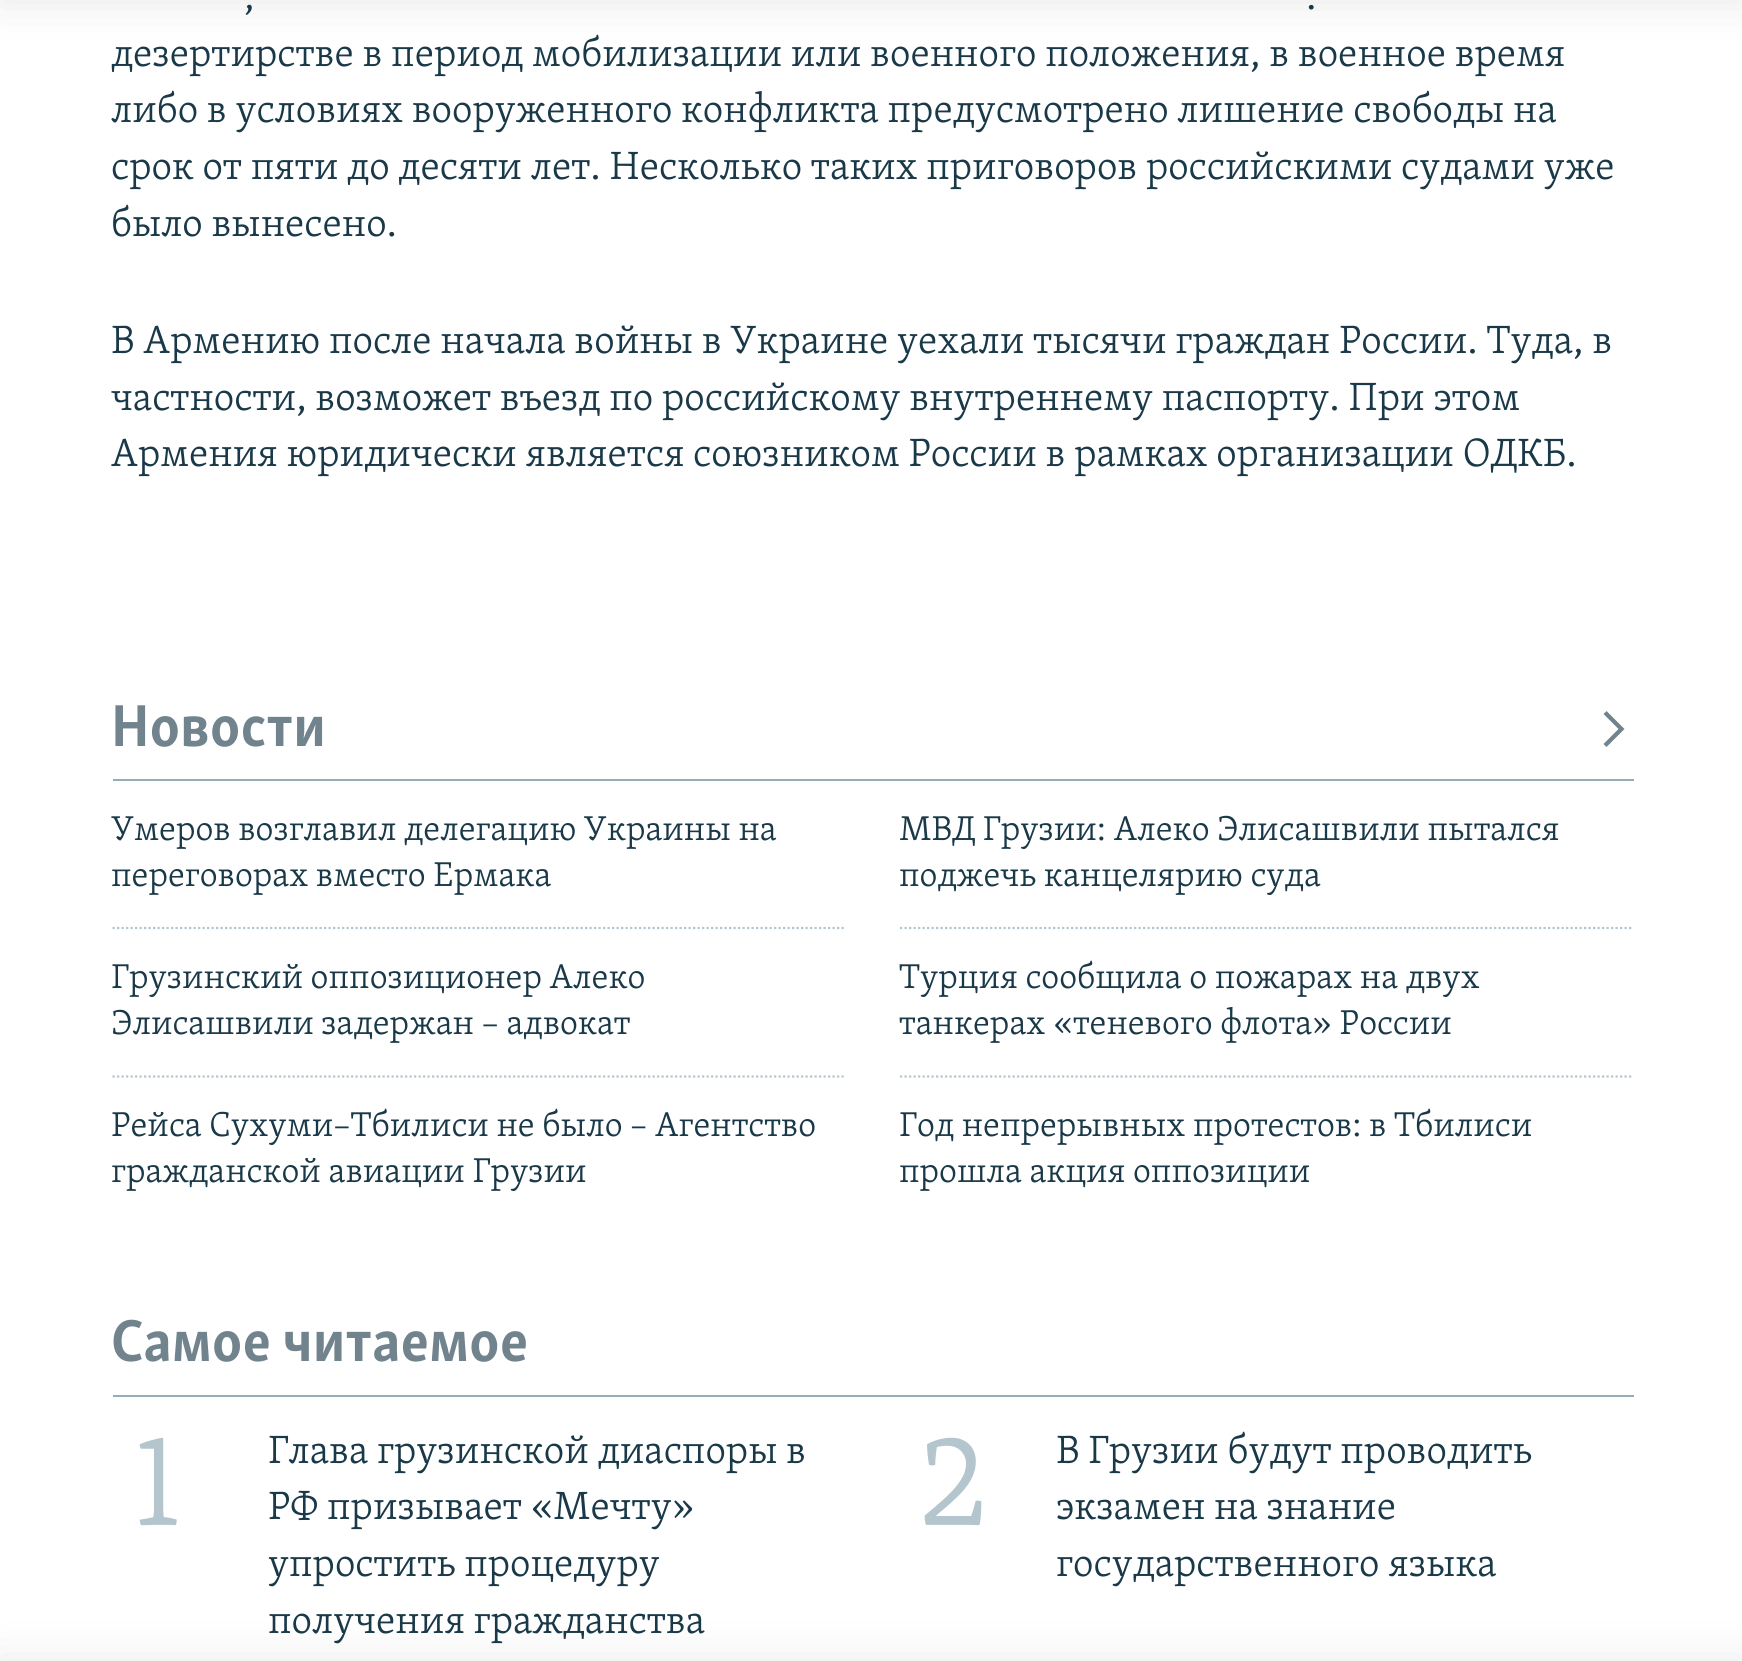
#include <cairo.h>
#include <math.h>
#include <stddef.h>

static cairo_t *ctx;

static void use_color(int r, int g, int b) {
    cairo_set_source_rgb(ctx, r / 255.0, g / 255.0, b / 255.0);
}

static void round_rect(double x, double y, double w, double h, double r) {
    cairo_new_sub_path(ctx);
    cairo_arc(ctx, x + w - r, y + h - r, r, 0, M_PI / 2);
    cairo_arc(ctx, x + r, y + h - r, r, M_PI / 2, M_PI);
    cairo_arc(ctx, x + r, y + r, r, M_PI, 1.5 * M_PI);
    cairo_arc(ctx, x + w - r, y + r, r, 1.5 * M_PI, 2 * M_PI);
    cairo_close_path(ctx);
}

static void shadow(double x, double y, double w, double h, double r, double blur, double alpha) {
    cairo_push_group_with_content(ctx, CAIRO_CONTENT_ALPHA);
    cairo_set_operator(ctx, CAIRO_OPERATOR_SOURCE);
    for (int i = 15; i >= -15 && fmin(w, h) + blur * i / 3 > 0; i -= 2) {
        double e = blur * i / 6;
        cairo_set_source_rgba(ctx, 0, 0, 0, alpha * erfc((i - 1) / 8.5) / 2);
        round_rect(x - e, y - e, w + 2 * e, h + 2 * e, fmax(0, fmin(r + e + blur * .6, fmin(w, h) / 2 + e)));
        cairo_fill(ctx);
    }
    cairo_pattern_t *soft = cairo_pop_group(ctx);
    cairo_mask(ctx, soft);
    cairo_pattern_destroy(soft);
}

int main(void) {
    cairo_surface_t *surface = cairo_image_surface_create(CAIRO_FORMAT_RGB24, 1742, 1661);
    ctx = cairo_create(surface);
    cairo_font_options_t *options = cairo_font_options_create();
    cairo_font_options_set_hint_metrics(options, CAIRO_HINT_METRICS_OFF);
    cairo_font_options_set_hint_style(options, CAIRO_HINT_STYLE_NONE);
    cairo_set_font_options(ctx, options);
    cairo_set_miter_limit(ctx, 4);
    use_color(255, 255, 255);
    cairo_paint(ctx);
    use_color(0, 0, 0);
    shadow(0, -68, 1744, 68, 0, 22.5, 0.1);
    shadow(0, 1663, 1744, 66, 0, 22.5, 0.1);
    cairo_select_font_face(ctx, "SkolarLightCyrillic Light", CAIRO_FONT_SLANT_NORMAL, CAIRO_FONT_WEIGHT_NORMAL);
    cairo_set_font_size(ctx, 40.5);
    use_color(26, 57, 72);
    cairo_move_to(ctx, 244, 9);
    cairo_show_text(ctx, ",");
    cairo_move_to(ctx, 1306, 9);
    cairo_show_text(ctx, ".");
    cairo_move_to(ctx, 111, 66);
    cairo_show_text(ctx, "дезертирстве в период мобилизации или военного положения, в военное время");
    cairo_move_to(ctx, 111, 122);
    cairo_show_text(ctx, "либо в условиях вооруженного конфликта предусмотрено лишение свободы на");
    cairo_move_to(ctx, 111, 179);
    cairo_show_text(ctx, "срок от пяти до десяти лет. Несколько таких приговоров российскими судами уже");
    cairo_move_to(ctx, 111, 236);
    cairo_show_text(ctx, "было вынесено.");
    cairo_move_to(ctx, 111, 353);
    cairo_show_text(ctx, "В Армению после начала войны в Украине уехали тысячи граждан России. Туда, в");
    cairo_move_to(ctx, 111, 410);
    cairo_show_text(ctx, "частности, возможет въезд по российскому внутреннему паспорту. При этом");
    cairo_move_to(ctx, 111, 466);
    cairo_show_text(ctx, "Армения юридически является союзником России в рамках организации ОДКБ.");
    use_color(149, 173, 185);
    cairo_rectangle(ctx, 113, 779, 1521, 2);
    cairo_fill(ctx);
    cairo_select_font_face(ctx, "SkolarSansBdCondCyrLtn", CAIRO_FONT_SLANT_NORMAL, CAIRO_FONT_WEIGHT_BOLD);
    cairo_set_font_size(ctx, 60.75);
    use_color(113, 131, 141);
    cairo_move_to(ctx, 111, 746);
    cairo_show_text(ctx, "Новости");
    cairo_new_path(ctx);
    cairo_move_to(ctx, 1606.5, 747);
    cairo_line_to(ctx, 1624.5, 729);
    cairo_line_to(ctx, 1606.5, 711);
    cairo_line_to(ctx, 1603.5, 714);
    cairo_line_to(ctx, 1618.5, 729);
    cairo_line_to(ctx, 1603.5, 744);
    cairo_close_path(ctx);
    cairo_fill(ctx);
    cairo_select_font_face(ctx, "SkolarLightCyrillic Light", CAIRO_FONT_SLANT_NORMAL, CAIRO_FONT_WEIGHT_NORMAL);
    cairo_set_font_size(ctx, 35.4);
    use_color(26, 57, 72);
    cairo_move_to(ctx, 111, 840);
    cairo_show_text(ctx, "Умеров возглавил делегацию Украины на");
    cairo_move_to(ctx, 111, 886);
    cairo_show_text(ctx, "переговорах вместо Ермака");
    cairo_move_to(ctx, 899, 840);
    cairo_show_text(ctx, "МВД Грузии: Алеко Элисашвили пытался");
    cairo_move_to(ctx, 899, 886);
    cairo_show_text(ctx, "поджечь канцелярию суда");
    cairo_new_path(ctx);
    cairo_move_to(ctx, 112.5, 928);
    cairo_line_to(ctx, 846, 928);
    use_color(180, 197, 205);
    cairo_set_line_width(ctx, 2.2);
    cairo_set_dash(ctx, (double[]){2.25, 2.25}, 2, 0);
    cairo_stroke(ctx);
    use_color(26, 57, 72);
    cairo_move_to(ctx, 111, 988);
    cairo_show_text(ctx, "Грузинский оппозиционер Алеко");
    cairo_move_to(ctx, 111, 1034);
    cairo_show_text(ctx, "Элисашвили задержан – адвокат");
    cairo_new_path(ctx);
    cairo_move_to(ctx, 900, 928);
    cairo_line_to(ctx, 1633.5, 928);
    use_color(180, 197, 205);
    cairo_stroke(ctx);
    use_color(26, 57, 72);
    cairo_move_to(ctx, 899, 988);
    cairo_show_text(ctx, "Турция сообщила о пожарах на двух");
    cairo_move_to(ctx, 899, 1034);
    cairo_show_text(ctx, "танкерах «теневого флота» России");
    cairo_new_path(ctx);
    cairo_move_to(ctx, 112.5, 1076.5);
    cairo_line_to(ctx, 846, 1076.5);
    use_color(180, 197, 205);
    cairo_stroke(ctx);
    use_color(26, 57, 72);
    cairo_move_to(ctx, 111, 1136);
    cairo_show_text(ctx, "Рейса Сухуми–Тбилиси не было – Агентство");
    cairo_move_to(ctx, 111, 1182);
    cairo_show_text(ctx, "гражданской авиации Грузии");
    cairo_new_path(ctx);
    cairo_move_to(ctx, 900, 1076.5);
    cairo_line_to(ctx, 1633.5, 1076.5);
    use_color(180, 197, 205);
    cairo_stroke(ctx);
    use_color(26, 57, 72);
    cairo_move_to(ctx, 899, 1136);
    cairo_show_text(ctx, "Год непрерывных протестов: в Тбилиси");
    cairo_move_to(ctx, 899, 1182);
    cairo_show_text(ctx, "прошла акция оппозиции");
    use_color(149, 173, 185);
    cairo_rectangle(ctx, 113, 1395, 1521, 2);
    cairo_fill(ctx);
    cairo_select_font_face(ctx, "SkolarSansBdCondCyrLtn", CAIRO_FONT_SLANT_NORMAL, CAIRO_FONT_WEIGHT_BOLD);
    cairo_set_font_size(ctx, 60.75);
    use_color(113, 131, 141);
    cairo_move_to(ctx, 111, 1361);
    cairo_show_text(ctx, "Самое читаемое");
    cairo_select_font_face(ctx, "SkolarLightCyrillic Light", CAIRO_FONT_SLANT_NORMAL, CAIRO_FONT_WEIGHT_NORMAL);
    cairo_set_font_size(ctx, 134);
    use_color(180, 197, 205);
    cairo_move_to(ctx, 132, 1525);
    cairo_show_text(ctx, "1");
    cairo_set_font_size(ctx, 40.5);
    use_color(26, 57, 72);
    cairo_move_to(ctx, 268, 1463);
    cairo_show_text(ctx, "Глава грузинской диаспоры в");
    cairo_move_to(ctx, 268, 1519);
    cairo_show_text(ctx, "РФ призывает «Мечту»");
    cairo_move_to(ctx, 268, 1576);
    cairo_show_text(ctx, "упростить процедуру");
    cairo_move_to(ctx, 268, 1633);
    cairo_show_text(ctx, "получения гражданства");
    cairo_set_font_size(ctx, 134);
    use_color(180, 197, 205);
    cairo_move_to(ctx, 919, 1525);
    cairo_show_text(ctx, "2");
    cairo_set_font_size(ctx, 40.5);
    use_color(26, 57, 72);
    cairo_move_to(ctx, 1056, 1463);
    cairo_show_text(ctx, "В Грузии будут проводить");
    cairo_move_to(ctx, 1056, 1519);
    cairo_show_text(ctx, "экзамен на знание");
    cairo_move_to(ctx, 1056, 1576);
    cairo_show_text(ctx, "государственного языка");
    cairo_surface_write_to_png(surface, "result.png");
    cairo_font_options_destroy(options);
    cairo_destroy(ctx);
    cairo_surface_destroy(surface);
    return 0;
}
